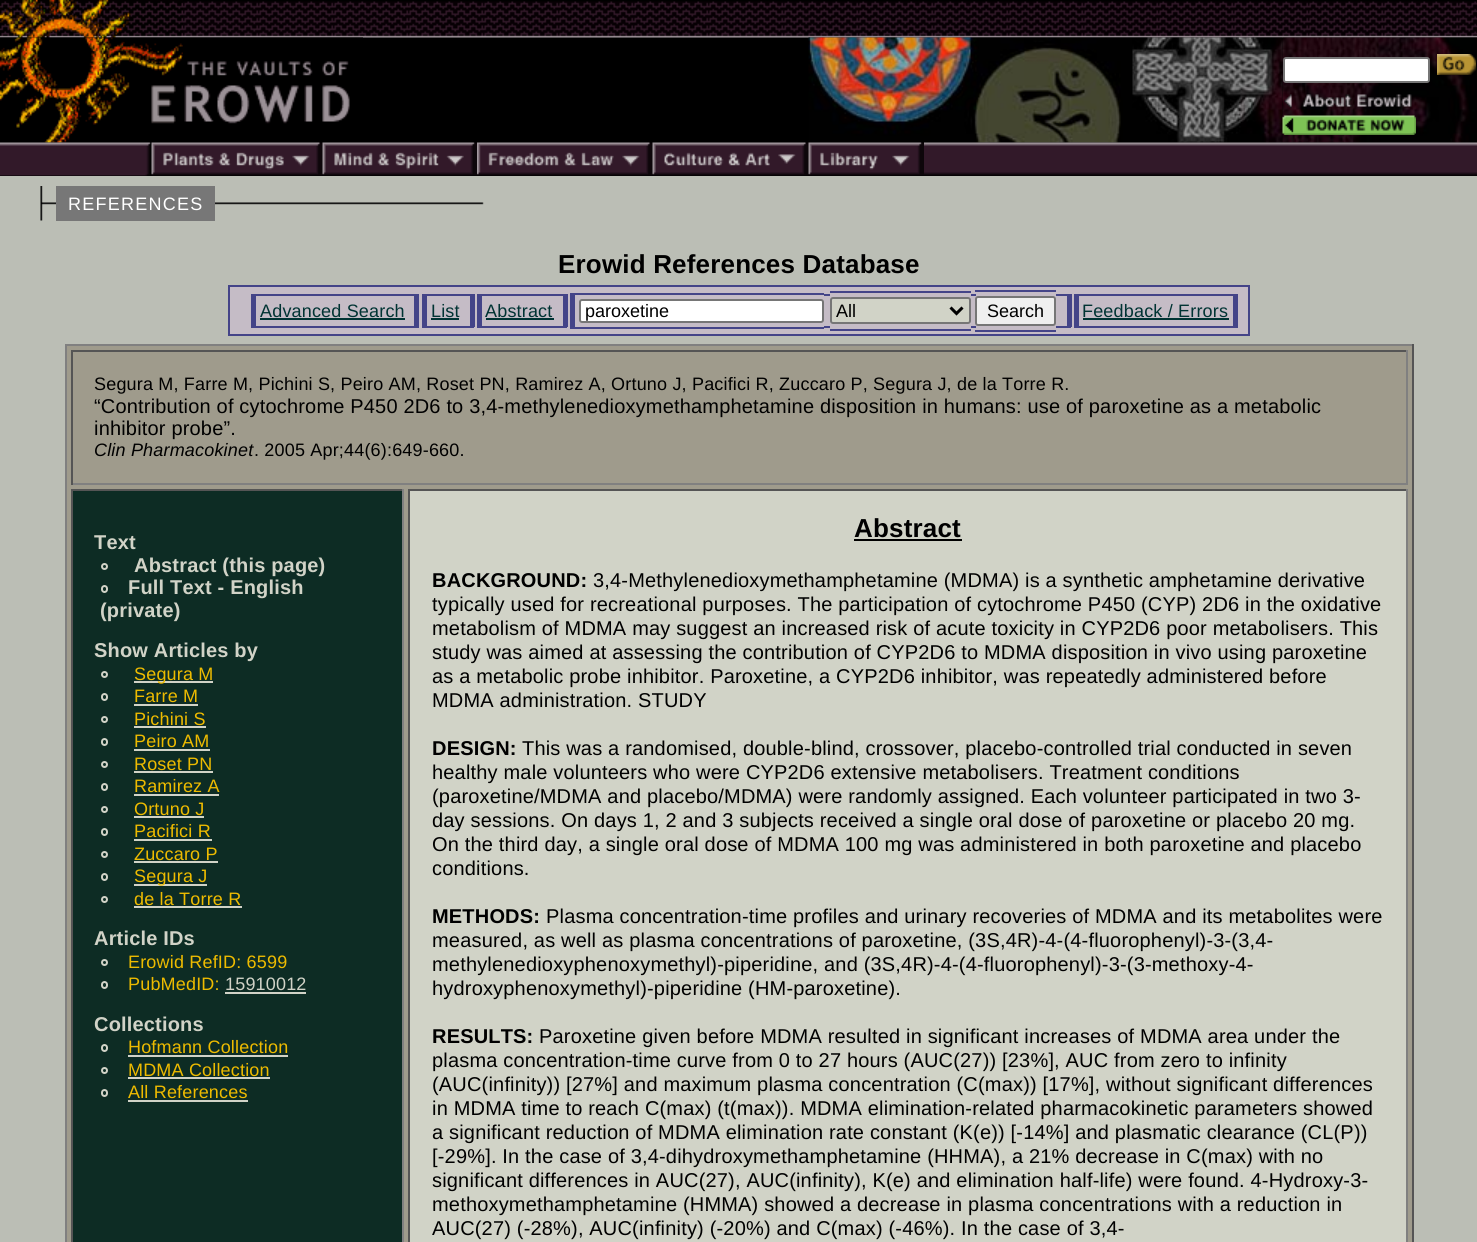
#include <cairo.h>
#include <math.h>
#include <stddef.h>

static cairo_t *ctx;

static void use_color(int r, int g, int b) {
    cairo_set_source_rgb(ctx, r / 255.0, g / 255.0, b / 255.0);
}

static void spaced_text(double x, double y, const char *s, double letter, double word) {
    cairo_move_to(ctx, x, y);
    while (*s) {
        char ch[5] = {0};
        int n = 0;
        do ch[n++] = *s++; while ((*s & 0xC0) == 0x80);
        cairo_show_text(ctx, ch);
        cairo_rel_move_to(ctx, letter + word * (*ch == ' '), 0);
    }
}

static void round_rect(double x, double y, double w, double h, double r) {
    cairo_new_sub_path(ctx);
    cairo_arc(ctx, x + w - r, y + h - r, r, 0, M_PI / 2);
    cairo_arc(ctx, x + r, y + h - r, r, M_PI / 2, M_PI);
    cairo_arc(ctx, x + r, y + r, r, M_PI, 1.5 * M_PI);
    cairo_arc(ctx, x + w - r, y + r, r, 1.5 * M_PI, 2 * M_PI);
    cairo_close_path(ctx);
}

static void picture(const char *path, double x, double y, double w, double h) {
    cairo_surface_t *image = cairo_image_surface_create_from_png(path);
    cairo_save(ctx);
    cairo_set_source_surface(ctx, image, x, y);
    cairo_rectangle(ctx, x, y, w, h);
    cairo_fill(ctx);
    cairo_restore(ctx);
    cairo_surface_destroy(image);
}

int main(void) {
    cairo_surface_t *surface = cairo_image_surface_create(CAIRO_FORMAT_RGB24, 1477, 1242);
    ctx = cairo_create(surface);
    cairo_font_options_t *options = cairo_font_options_create();
    cairo_font_options_set_hint_metrics(options, CAIRO_HINT_METRICS_OFF);
    cairo_font_options_set_hint_style(options, CAIRO_HINT_STYLE_NONE);
    cairo_set_font_options(ctx, options);
    cairo_set_miter_limit(ctx, 4);
    use_color(187, 190, 181);
    cairo_paint(ctx);
    use_color(0, 0, 0);
    cairo_rectangle(ctx, 0, 0, 1477, 176);
    cairo_fill(ctx);
    picture("img1.png", 0, 0, 183, 38);
    picture("img2.png", 183, 1, 1294, 37);
    picture("img3.png", 0, 37, 183, 106);
    picture("img4.png", 183, 37, 180, 87);
    picture("img5.png", 808, 37, 475, 106);
    picture("img6.png", 1282, 37, 195, 106);
    use_color(255, 255, 255);
    round_rect(1284, 58, 145, 24, 2);
    cairo_fill_preserve(ctx);
    use_color(118, 118, 118);
    cairo_stroke(ctx);
    picture("img7.png", 1437, 54, 39, 21);
    picture("img8.png", 1284, 94, 128, 14);
    picture("img9.png", 1282, 115, 134, 20);
    picture("img10.png", 0, 142, 151, 34);
    picture("img11.png", 151, 142, 172, 34);
    picture("img12.png", 322, 142, 155, 34);
    picture("img13.png", 477, 142, 176, 34);
    picture("img14.png", 652, 142, 157, 34);
    picture("img15.png", 808, 142, 116, 34);
    picture("img16.png", 924, 142, 553, 34);
    picture("img17.png", 40, 186, 444, 35);
    use_color(119, 119, 119);
    cairo_rectangle(ctx, 56, 186, 159, 35);
    cairo_fill(ctx);
    cairo_select_font_face(ctx, "Liberation Sans", CAIRO_FONT_SLANT_NORMAL, CAIRO_FONT_WEIGHT_NORMAL);
    cairo_set_font_size(ctx, 18);
    use_color(255, 255, 255);
    spaced_text(68, 210, "REFERENCES", 1.25, 0);
    cairo_select_font_face(ctx, "Liberation Sans", CAIRO_FONT_SLANT_NORMAL, CAIRO_FONT_WEIGHT_BOLD);
    cairo_set_font_size(ctx, 26);
    use_color(0, 0, 0);
    spaced_text(558, 273, "Erowid References Database", 0.18, 0);
    use_color(197, 188, 198);
    cairo_rectangle(ctx, 229, 286, 1020, 49);
    cairo_fill_preserve(ctx);
    use_color(68, 68, 136);
    cairo_stroke(ctx);
    cairo_select_font_face(ctx, "Liberation Sans", CAIRO_FONT_SLANT_NORMAL, CAIRO_FONT_WEIGHT_NORMAL);
    cairo_set_font_size(ctx, 18);
    use_color(0, 51, 51);
    spaced_text(260, 317, "Advanced Search", 0.18, 0);
    use_color(68, 68, 136);
    cairo_rectangle(ctx, 251, 294, 168, 2);
    cairo_fill(ctx);
    cairo_rectangle(ctx, 251, 326, 154, 2);
    cairo_fill(ctx);
    cairo_rectangle(ctx, 251, 294, 5, 33);
    cairo_fill(ctx);
    cairo_rectangle(ctx, 414, 294, 5, 33);
    cairo_fill(ctx);
    cairo_rectangle(ctx, 405, 326, 14, 2);
    cairo_fill(ctx);
    use_color(0, 51, 51);
    cairo_rectangle(ctx, 260, 318, 145, 2);
    cairo_fill(ctx);
    spaced_text(431, 317, "List", 0.18, 0);
    use_color(68, 68, 136);
    cairo_rectangle(ctx, 422, 294, 52, 2);
    cairo_fill(ctx);
    cairo_rectangle(ctx, 422, 326, 37, 2);
    cairo_fill(ctx);
    cairo_rectangle(ctx, 422, 294, 5, 33);
    cairo_fill(ctx);
    cairo_rectangle(ctx, 470, 294, 5, 33);
    cairo_fill(ctx);
    cairo_rectangle(ctx, 459, 326, 15, 2);
    cairo_fill(ctx);
    use_color(0, 51, 51);
    cairo_rectangle(ctx, 431, 318, 28, 2);
    cairo_fill(ctx);
    spaced_text(485, 317, "Abstract", 0.18, 0);
    use_color(68, 68, 136);
    cairo_rectangle(ctx, 477, 294, 90, 2);
    cairo_fill(ctx);
    cairo_rectangle(ctx, 477, 326, 77, 2);
    cairo_fill(ctx);
    cairo_rectangle(ctx, 477, 294, 5, 33);
    cairo_fill(ctx);
    cairo_rectangle(ctx, 563, 294, 5, 33);
    cairo_fill(ctx);
    cairo_rectangle(ctx, 554, 326, 13, 2);
    cairo_fill(ctx);
    use_color(0, 51, 51);
    cairo_rectangle(ctx, 486, 318, 68, 2);
    cairo_fill(ctx);
    use_color(68, 68, 136);
    cairo_rectangle(ctx, 570, 293, 254, 2);
    cairo_fill(ctx);
    cairo_rectangle(ctx, 570, 327, 254, 2);
    cairo_fill(ctx);
    cairo_rectangle(ctx, 570, 293, 5, 36);
    cairo_fill(ctx);
    cairo_rectangle(ctx, 824, 294, 6, 2);
    cairo_fill(ctx);
    cairo_rectangle(ctx, 824, 326, 6, 2);
    cairo_fill(ctx);
    cairo_rectangle(ctx, 830, 291, 141, 2);
    cairo_fill(ctx);
    cairo_rectangle(ctx, 830, 329, 141, 2);
    cairo_fill(ctx);
    cairo_rectangle(ctx, 971, 294, 5, 2);
    cairo_fill(ctx);
    cairo_rectangle(ctx, 971, 326, 5, 2);
    cairo_fill(ctx);
    cairo_rectangle(ctx, 975, 290, 81, 2);
    cairo_fill(ctx);
    cairo_rectangle(ctx, 975, 330, 81, 2);
    cairo_fill(ctx);
    cairo_rectangle(ctx, 1056, 294, 15, 2);
    cairo_fill(ctx);
    cairo_rectangle(ctx, 1067, 294, 5, 33);
    cairo_fill(ctx);
    cairo_rectangle(ctx, 1056, 326, 15, 2);
    cairo_fill(ctx);
    use_color(255, 255, 255);
    round_rect(580, 300, 243, 22, 2);
    cairo_fill_preserve(ctx);
    use_color(118, 118, 118);
    cairo_stroke(ctx);
    use_color(0, 0, 0);
    cairo_move_to(ctx, 585, 317);
    cairo_show_text(ctx, "paroxetine");
    use_color(209, 211, 199);
    round_rect(831, 298, 139, 25, 2);
    cairo_fill_preserve(ctx);
    use_color(118, 118, 118);
    cairo_stroke(ctx);
    cairo_new_path(ctx);
    cairo_move_to(ctx, 950.5, 307.5);
    cairo_line_to(ctx, 956.5, 313.5);
    cairo_line_to(ctx, 962.5, 307.5);
    use_color(0, 0, 0);
    cairo_set_line_width(ctx, 3);
    cairo_stroke(ctx);
    cairo_move_to(ctx, 836, 317);
    cairo_show_text(ctx, "All");
    use_color(239, 239, 239);
    round_rect(976, 297, 79, 28, 2);
    cairo_fill_preserve(ctx);
    use_color(118, 118, 118);
    cairo_set_line_width(ctx, 2);
    cairo_stroke(ctx);
    use_color(0, 0, 0);
    cairo_move_to(ctx, 987, 317);
    cairo_show_text(ctx, "Search");
    use_color(0, 51, 51);
    spaced_text(1082, 317, "Feedback / Errors", 0.18, 0);
    use_color(68, 68, 136);
    cairo_rectangle(ctx, 1074, 294, 164, 2);
    cairo_fill(ctx);
    cairo_rectangle(ctx, 1233, 294, 5, 33);
    cairo_fill(ctx);
    cairo_rectangle(ctx, 1074, 326, 164, 2);
    cairo_fill(ctx);
    cairo_rectangle(ctx, 1074, 294, 5, 33);
    cairo_fill(ctx);
    use_color(0, 51, 51);
    cairo_rectangle(ctx, 1083, 318, 146, 2);
    cairo_fill(ctx);
    use_color(159, 155, 140);
    cairo_rectangle(ctx, 67, 346, 1345, 896);
    cairo_fill(ctx);
    use_color(128, 128, 128);
    cairo_rectangle(ctx, 65, 344, 1348, 2);
    cairo_fill(ctx);
    use_color(85, 85, 85);
    cairo_rectangle(ctx, 1412, 344, 2, 898);
    cairo_fill(ctx);
    use_color(128, 128, 128);
    cairo_rectangle(ctx, 65, 344, 2, 898);
    cairo_fill(ctx);
    use_color(85, 85, 85);
    cairo_rectangle(ctx, 71, 350, 1336, 2);
    cairo_fill(ctx);
    use_color(128, 128, 128);
    cairo_rectangle(ctx, 1406, 350, 2, 135);
    cairo_fill(ctx);
    cairo_rectangle(ctx, 71, 483, 1336, 2);
    cairo_fill(ctx);
    use_color(85, 85, 85);
    cairo_rectangle(ctx, 71, 350, 2, 135);
    cairo_fill(ctx);
    use_color(0, 0, 0);
    spaced_text(94, 390, "Segura M, Farre M, Pichini S, Peiro AM, Roset PN, Ramirez A, Ortuno J, Pacifici R, Zuccaro P, Segura J, de la Torre R.", 0.18, 0);
    cairo_set_font_size(ctx, 20);
    spaced_text(94, 413, "“Contribution of cytochrome P450 2D6 to 3,4-methylenedioxymethamphetamine disposition in humans: use of paroxetine as a metabolic", 0.18, 0);
    spaced_text(94, 435, "inhibitor probe”.", 0.18, 0);
    cairo_select_font_face(ctx, "Liberation Sans", CAIRO_FONT_SLANT_ITALIC, CAIRO_FONT_WEIGHT_NORMAL);
    cairo_set_font_size(ctx, 18);
    spaced_text(94, 456, "Clin Pharmacokinet", 0.18, 0);
    cairo_select_font_face(ctx, "Liberation Sans", CAIRO_FONT_SLANT_NORMAL, CAIRO_FONT_WEIGHT_NORMAL);
    spaced_text(254, 456, ". 2005 Apr;44(6):649-660.", 0.18, 0);
    use_color(13, 44, 36);
    cairo_rectangle(ctx, 73, 491, 329, 751);
    cairo_fill(ctx);
    use_color(85, 85, 85);
    cairo_rectangle(ctx, 71, 489, 333, 2);
    cairo_fill(ctx);
    use_color(128, 128, 128);
    cairo_rectangle(ctx, 402, 489, 2, 753);
    cairo_fill(ctx);
    use_color(85, 85, 85);
    cairo_rectangle(ctx, 71, 489, 2, 753);
    cairo_fill(ctx);
    cairo_select_font_face(ctx, "Liberation Sans", CAIRO_FONT_SLANT_NORMAL, CAIRO_FONT_WEIGHT_BOLD);
    cairo_set_font_size(ctx, 20);
    use_color(209, 211, 199);
    spaced_text(94, 549, "Text", 0.18, 0);
    cairo_new_path(ctx);
    cairo_arc(ctx, 104.5, 566.5, 2.5, 0, 2 * M_PI);
    cairo_stroke(ctx);
    spaced_text(134, 572, "Abstract (this page)", 0.18, 0);
    round_rect(102, 586, 5, 6, 2.5);
    cairo_stroke(ctx);
    spaced_text(128, 594, "Full Text - English", 0.18, 0);
    spaced_text(100, 617, "(private)", 0.18, 0);
    spaced_text(94, 657, "Show Articles by", 0.18, 0);
    cairo_new_path(ctx);
    cairo_arc(ctx, 104.5, 674.5, 2.5, 0, 2 * M_PI);
    cairo_stroke(ctx);
    cairo_rectangle(ctx, 134, 681, 79, 2);
    cairo_fill(ctx);
    cairo_select_font_face(ctx, "Liberation Sans", CAIRO_FONT_SLANT_NORMAL, CAIRO_FONT_WEIGHT_NORMAL);
    cairo_set_font_size(ctx, 18);
    use_color(238, 187, 0);
    spaced_text(134, 680, "Segura M", 0.18, 0);
    round_rect(102, 694, 5, 6, 2.5);
    use_color(209, 211, 199);
    cairo_stroke(ctx);
    use_color(238, 187, 0);
    spaced_text(134, 702, "Farre M", 0.18, 0);
    use_color(209, 211, 199);
    cairo_rectangle(ctx, 134, 704, 64, 2);
    cairo_fill(ctx);
    cairo_arc(ctx, 104.5, 719.5, 2.5, 0, 2 * M_PI);
    cairo_stroke(ctx);
    use_color(238, 187, 0);
    spaced_text(134, 725, "Pichini S", 0.18, 0);
    use_color(209, 211, 199);
    cairo_rectangle(ctx, 134, 726, 72, 2);
    cairo_fill(ctx);
    round_rect(102, 739, 5, 6, 2.5);
    cairo_stroke(ctx);
    use_color(238, 187, 0);
    spaced_text(134, 747, "Peiro AM", 0.18, 0);
    use_color(209, 211, 199);
    cairo_rectangle(ctx, 134, 749, 76, 2);
    cairo_fill(ctx);
    cairo_arc(ctx, 104.5, 764.5, 2.5, 0, 2 * M_PI);
    cairo_stroke(ctx);
    use_color(238, 187, 0);
    spaced_text(134, 770, "Roset PN", 0.18, 0);
    use_color(209, 211, 199);
    cairo_rectangle(ctx, 134, 771, 79, 2);
    cairo_fill(ctx);
    round_rect(102, 784, 5, 6, 2.5);
    cairo_stroke(ctx);
    use_color(238, 187, 0);
    spaced_text(134, 792, "Ramirez A", 0.18, 0);
    use_color(209, 211, 199);
    cairo_rectangle(ctx, 134, 794, 85, 2);
    cairo_fill(ctx);
    cairo_arc(ctx, 104.5, 809.5, 2.5, 0, 2 * M_PI);
    cairo_stroke(ctx);
    use_color(238, 187, 0);
    spaced_text(134, 815, "Ortuno J", 0.18, 0);
    use_color(209, 211, 199);
    cairo_rectangle(ctx, 134, 816, 70, 2);
    cairo_fill(ctx);
    round_rect(102, 829, 5, 6, 2.5);
    cairo_stroke(ctx);
    use_color(238, 187, 0);
    spaced_text(134, 837, "Pacifici R", 0.18, 0);
    use_color(209, 211, 199);
    cairo_rectangle(ctx, 134, 839, 78, 2);
    cairo_fill(ctx);
    cairo_arc(ctx, 104.5, 854.5, 2.5, 0, 2 * M_PI);
    cairo_stroke(ctx);
    use_color(238, 187, 0);
    spaced_text(134, 860, "Zuccaro P", 0.18, 0);
    use_color(209, 211, 199);
    cairo_rectangle(ctx, 134, 861, 84, 2);
    cairo_fill(ctx);
    round_rect(102, 874, 5, 6, 2.5);
    cairo_stroke(ctx);
    cairo_rectangle(ctx, 134, 884, 73, 2);
    cairo_fill(ctx);
    use_color(238, 187, 0);
    spaced_text(134, 882, "Segura J", 0.18, 0);
    cairo_new_path(ctx);
    cairo_arc(ctx, 104.5, 899.5, 2.5, 0, 2 * M_PI);
    use_color(209, 211, 199);
    cairo_stroke(ctx);
    use_color(238, 187, 0);
    spaced_text(134, 905, "de la Torre R", 0.18, 0);
    use_color(209, 211, 199);
    cairo_rectangle(ctx, 134, 906, 108, 2);
    cairo_fill(ctx);
    cairo_select_font_face(ctx, "Liberation Sans", CAIRO_FONT_SLANT_NORMAL, CAIRO_FONT_WEIGHT_BOLD);
    cairo_set_font_size(ctx, 20);
    spaced_text(94, 945, "Article IDs", 0.18, 0);
    cairo_new_path(ctx);
    cairo_arc(ctx, 104.5, 962.5, 2.5, 0, 2 * M_PI);
    cairo_stroke(ctx);
    cairo_select_font_face(ctx, "Liberation Sans", CAIRO_FONT_SLANT_NORMAL, CAIRO_FONT_WEIGHT_NORMAL);
    cairo_set_font_size(ctx, 18);
    use_color(238, 187, 0);
    spaced_text(128, 968, "Erowid RefID: 6599", 0.18, 0);
    round_rect(102, 982, 5, 6, 2.5);
    use_color(209, 211, 199);
    cairo_stroke(ctx);
    use_color(238, 187, 0);
    spaced_text(128, 990, "PubMedID:", 0.18, 0);
    use_color(209, 211, 199);
    spaced_text(225, 990, "15910012", 0.18, 0);
    cairo_rectangle(ctx, 225, 992, 81, 2);
    cairo_fill(ctx);
    cairo_select_font_face(ctx, "Liberation Sans", CAIRO_FONT_SLANT_NORMAL, CAIRO_FONT_WEIGHT_BOLD);
    cairo_set_font_size(ctx, 20);
    spaced_text(94, 1031, "Collections", 0.18, 0);
    round_rect(102, 1045, 5, 6, 2.5);
    cairo_stroke(ctx);
    cairo_select_font_face(ctx, "Liberation Sans", CAIRO_FONT_SLANT_NORMAL, CAIRO_FONT_WEIGHT_NORMAL);
    cairo_set_font_size(ctx, 18);
    use_color(238, 187, 0);
    spaced_text(128, 1053, "Hofmann Collection", 0.18, 0);
    use_color(209, 211, 199);
    cairo_rectangle(ctx, 128, 1055, 160, 2);
    cairo_fill(ctx);
    cairo_arc(ctx, 104.5, 1070.5, 2.5, 0, 2 * M_PI);
    cairo_stroke(ctx);
    use_color(238, 187, 0);
    spaced_text(128, 1076, "MDMA Collection", 0.18, 0);
    use_color(209, 211, 199);
    cairo_rectangle(ctx, 128, 1077, 142, 2);
    cairo_fill(ctx);
    round_rect(102, 1090, 5, 6, 2.5);
    cairo_stroke(ctx);
    use_color(238, 187, 0);
    spaced_text(128, 1098, "All References", 0.18, 0);
    use_color(209, 211, 199);
    cairo_rectangle(ctx, 128, 1100, 120, 2);
    cairo_fill(ctx);
    cairo_rectangle(ctx, 410, 491, 996, 751);
    cairo_fill(ctx);
    use_color(85, 85, 85);
    cairo_rectangle(ctx, 408, 489, 999, 2);
    cairo_fill(ctx);
    use_color(128, 128, 128);
    cairo_rectangle(ctx, 1406, 489, 2, 753);
    cairo_fill(ctx);
    use_color(85, 85, 85);
    cairo_rectangle(ctx, 408, 489, 2, 753);
    cairo_fill(ctx);
    cairo_select_font_face(ctx, "Liberation Sans", CAIRO_FONT_SLANT_NORMAL, CAIRO_FONT_WEIGHT_BOLD);
    cairo_set_font_size(ctx, 26);
    use_color(0, 0, 0);
    spaced_text(854, 537, "Abstract", 0.18, 0);
    cairo_rectangle(ctx, 854, 539, 108, 2);
    cairo_fill(ctx);
    cairo_set_font_size(ctx, 20);
    spaced_text(432, 587, "BACKGROUND:", 0.18, 0);
    cairo_select_font_face(ctx, "Liberation Sans", CAIRO_FONT_SLANT_NORMAL, CAIRO_FONT_WEIGHT_NORMAL);
    spaced_text(593, 587, "3,4-Methylenedioxymethamphetamine (MDMA) is a synthetic amphetamine derivative", 0.18, 0);
    spaced_text(432, 611, "typically used for recreational purposes. The participation of cytochrome P450 (CYP) 2D6 in the oxidative", 0.18, 0);
    spaced_text(432, 635, "metabolism of MDMA may suggest an increased risk of acute toxicity in CYP2D6 poor metabolisers. This", 0.18, 0);
    spaced_text(432, 659, "study was aimed at assessing the contribution of CYP2D6 to MDMA disposition in vivo using paroxetine", 0.18, 0);
    spaced_text(432, 683, "as a metabolic probe inhibitor. Paroxetine, a CYP2D6 inhibitor, was repeatedly administered before", 0.18, 0);
    spaced_text(432, 707, "MDMA administration. STUDY", 0.18, 0);
    cairo_select_font_face(ctx, "Liberation Sans", CAIRO_FONT_SLANT_NORMAL, CAIRO_FONT_WEIGHT_BOLD);
    spaced_text(432, 755, "DESIGN:", 0.18, 0);
    cairo_select_font_face(ctx, "Liberation Sans", CAIRO_FONT_SLANT_NORMAL, CAIRO_FONT_WEIGHT_NORMAL);
    spaced_text(522, 755, "This was a randomised, double-blind, crossover, placebo-controlled trial conducted in seven", 0.18, 0);
    spaced_text(432, 779, "healthy male volunteers who were CYP2D6 extensive metabolisers. Treatment conditions", 0.18, 0);
    spaced_text(432, 803, "(paroxetine/MDMA and placebo/MDMA) were randomly assigned. Each volunteer participated in two 3-", 0.18, 0);
    spaced_text(432, 827, "day sessions. On days 1, 2 and 3 subjects received a single oral dose of paroxetine or placebo 20 mg.", 0.18, 0);
    spaced_text(432, 851, "On the third day, a single oral dose of MDMA 100 mg was administered in both paroxetine and placebo", 0.18, 0);
    spaced_text(432, 875, "conditions.", 0.18, 0);
    cairo_select_font_face(ctx, "Liberation Sans", CAIRO_FONT_SLANT_NORMAL, CAIRO_FONT_WEIGHT_BOLD);
    spaced_text(432, 923, "METHODS:", 0.18, 0);
    cairo_select_font_face(ctx, "Liberation Sans", CAIRO_FONT_SLANT_NORMAL, CAIRO_FONT_WEIGHT_NORMAL);
    spaced_text(546, 923, "Plasma concentration-time profiles and urinary recoveries of MDMA and its metabolites were", 0.18, 0);
    spaced_text(432, 947, "measured, as well as plasma concentrations of paroxetine, (3S,4R)-4-(4-fluorophenyl)-3-(3,4-", 0.18, 0);
    spaced_text(432, 971, "methylenedioxyphenoxymethyl)-piperidine, and (3S,4R)-4-(4-fluorophenyl)-3-(3-methoxy-4-", 0.18, 0);
    spaced_text(432, 995, "hydroxyphenoxymethyl)-piperidine (HM-paroxetine).", 0.18, 0);
    cairo_select_font_face(ctx, "Liberation Sans", CAIRO_FONT_SLANT_NORMAL, CAIRO_FONT_WEIGHT_BOLD);
    spaced_text(432, 1043, "RESULTS:", 0.18, 0);
    cairo_select_font_face(ctx, "Liberation Sans", CAIRO_FONT_SLANT_NORMAL, CAIRO_FONT_WEIGHT_NORMAL);
    spaced_text(539, 1043, "Paroxetine given before MDMA resulted in significant increases of MDMA area under the", 0.18, 0);
    spaced_text(432, 1067, "plasma concentration-time curve from 0 to 27 hours (AUC(27)) [23%], AUC from zero to infinity", 0.18, 0);
    spaced_text(432, 1091, "(AUC(infinity)) [27%] and maximum plasma concentration (C(max)) [17%], without significant differences", 0.18, 0);
    spaced_text(432, 1115, "in MDMA time to reach C(max) (t(max)). MDMA elimination-related pharmacokinetic parameters showed", 0.18, 0);
    spaced_text(432, 1139, "a significant reduction of MDMA elimination rate constant (K(e)) [-14%] and plasmatic clearance (CL(P))", 0.18, 0);
    spaced_text(432, 1163, "[-29%]. In the case of 3,4-dihydroxymethamphetamine (HHMA), a 21% decrease in C(max) with no", 0.18, 0);
    spaced_text(432, 1187, "significant differences in AUC(27), AUC(infinity), K(e) and elimination half-life) were found. 4-Hydroxy-3-", 0.18, 0);
    spaced_text(432, 1211, "methoxymethamphetamine (HMMA) showed a decrease in plasma concentrations with a reduction in", 0.18, 0);
    spaced_text(432, 1235, "AUC(27) (-28%), AUC(infinity) (-20%) and C(max) (-46%). In the case of 3,4-", 0.18, 0);
    cairo_surface_write_to_png(surface, "result.png");
    cairo_font_options_destroy(options);
    cairo_destroy(ctx);
    cairo_surface_destroy(surface);
    return 0;
}
